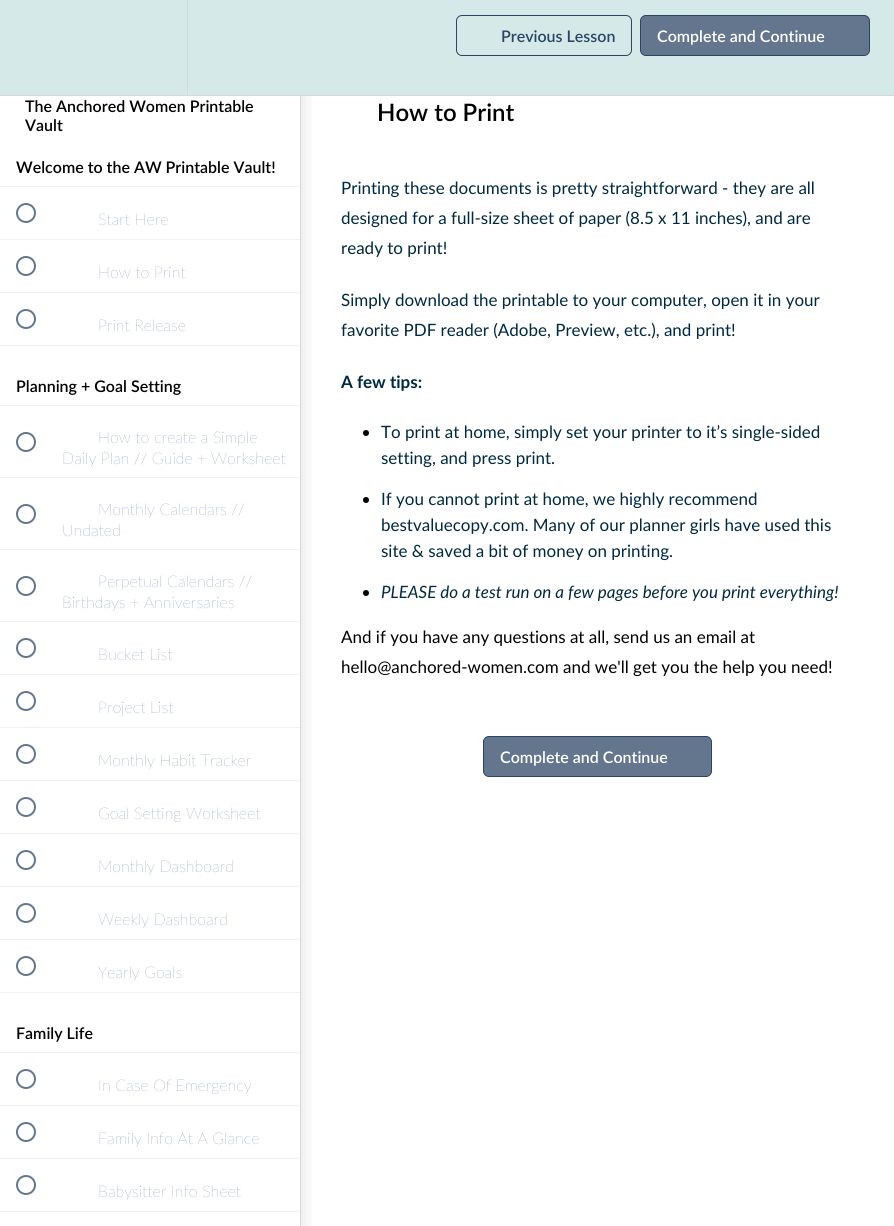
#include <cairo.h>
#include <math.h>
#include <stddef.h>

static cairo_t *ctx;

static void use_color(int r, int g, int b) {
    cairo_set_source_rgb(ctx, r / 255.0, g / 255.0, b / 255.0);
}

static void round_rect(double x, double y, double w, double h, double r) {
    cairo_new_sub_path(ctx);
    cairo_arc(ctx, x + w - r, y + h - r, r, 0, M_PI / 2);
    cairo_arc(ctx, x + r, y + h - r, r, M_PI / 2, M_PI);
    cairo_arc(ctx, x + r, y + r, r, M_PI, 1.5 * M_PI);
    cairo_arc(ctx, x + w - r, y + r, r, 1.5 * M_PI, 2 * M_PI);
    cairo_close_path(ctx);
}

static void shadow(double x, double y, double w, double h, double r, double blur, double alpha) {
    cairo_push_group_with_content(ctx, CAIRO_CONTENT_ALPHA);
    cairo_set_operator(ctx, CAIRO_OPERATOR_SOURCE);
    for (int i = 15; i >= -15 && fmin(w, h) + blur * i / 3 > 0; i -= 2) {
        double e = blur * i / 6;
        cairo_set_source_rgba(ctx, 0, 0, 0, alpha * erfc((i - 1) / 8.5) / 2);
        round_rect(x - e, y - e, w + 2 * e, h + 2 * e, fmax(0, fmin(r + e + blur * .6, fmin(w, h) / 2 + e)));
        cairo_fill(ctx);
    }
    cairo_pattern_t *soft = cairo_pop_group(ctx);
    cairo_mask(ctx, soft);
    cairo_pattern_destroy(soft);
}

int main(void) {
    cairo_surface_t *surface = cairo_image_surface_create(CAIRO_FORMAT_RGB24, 894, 1226);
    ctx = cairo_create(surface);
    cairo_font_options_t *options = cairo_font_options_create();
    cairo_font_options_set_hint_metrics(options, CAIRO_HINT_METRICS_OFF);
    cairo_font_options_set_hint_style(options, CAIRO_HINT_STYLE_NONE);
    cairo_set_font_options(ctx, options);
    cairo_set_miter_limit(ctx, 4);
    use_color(255, 255, 255);
    cairo_paint(ctx);
    cairo_save(ctx);
    cairo_rectangle(ctx, 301, 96, 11, 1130);
    cairo_clip(ctx);
    use_color(32, 39, 45);
    shadow(0, 77, 301, 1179, 0, 10, 0.15);
    cairo_restore(ctx);
    use_color(213, 233, 233);
    cairo_rectangle(ctx, 0, 0, 894, 95);
    cairo_fill(ctx);
    use_color(215, 218, 219);
    cairo_rectangle(ctx, 0, 95, 894, 1);
    cairo_fill(ctx);
    cairo_rectangle(ctx, 187, 0, 1, 95);
    cairo_fill(ctx);
    round_rect(456.5, 15.5, 175, 40, 5.5);
    use_color(43, 68, 100);
    cairo_set_line_width(ctx, 1);
    cairo_stroke(ctx);
    cairo_select_font_face(ctx, "Lato SemiBold", CAIRO_FONT_SLANT_NORMAL, CAIRO_FONT_WEIGHT_NORMAL);
    cairo_set_font_size(ctx, 16);
    cairo_move_to(ctx, 501, 42);
    cairo_show_text(ctx, "Previous Lesson");
    use_color(99, 118, 141);
    round_rect(640.5, 15.5, 229, 40, 5.5);
    cairo_fill_preserve(ctx);
    use_color(43, 68, 100);
    cairo_stroke(ctx);
    use_color(255, 255, 255);
    cairo_move_to(ctx, 657, 42);
    cairo_show_text(ctx, "Complete and Continue");
    use_color(215, 218, 219);
    cairo_rectangle(ctx, 300, 96, 1, 1130);
    cairo_fill(ctx);
    use_color(0, 0, 0);
    cairo_move_to(ctx, 25, 112);
    cairo_show_text(ctx, "The Anchored Women Printable");
    cairo_move_to(ctx, 25, 131);
    cairo_show_text(ctx, "Vault");
    use_color(239, 241, 244);
    cairo_rectangle(ctx, 0, 186, 300, 1);
    cairo_fill(ctx);
    use_color(0, 0, 0);
    cairo_move_to(ctx, 16, 173);
    cairo_show_text(ctx, "Welcome to the AW Printable Vault!");
    use_color(239, 241, 244);
    cairo_rectangle(ctx, 0, 239, 300, 1);
    cairo_fill(ctx);
    cairo_arc(ctx, 26, 213, 9, 0, 2 * M_PI);
    use_color(99, 118, 141);
    cairo_set_line_width(ctx, 2);
    cairo_stroke(ctx);
    cairo_select_font_face(ctx, "Lato ExtraLight", CAIRO_FONT_SLANT_NORMAL, CAIRO_FONT_WEIGHT_NORMAL);
    use_color(58, 92, 136);
    cairo_move_to(ctx, 98, 225);
    cairo_show_text(ctx, "Start Here");
    use_color(239, 241, 244);
    cairo_rectangle(ctx, 0, 292, 300, 1);
    cairo_fill(ctx);
    cairo_arc(ctx, 26, 266, 9, 0, 2 * M_PI);
    use_color(99, 118, 141);
    cairo_stroke(ctx);
    use_color(58, 92, 136);
    cairo_move_to(ctx, 98, 278);
    cairo_show_text(ctx, "How to Print");
    use_color(239, 241, 244);
    cairo_rectangle(ctx, 0, 345, 300, 1);
    cairo_fill(ctx);
    cairo_arc(ctx, 26, 319, 9, 0, 2 * M_PI);
    use_color(99, 118, 141);
    cairo_stroke(ctx);
    use_color(58, 92, 136);
    cairo_move_to(ctx, 98, 331);
    cairo_show_text(ctx, "Print Release");
    use_color(239, 241, 244);
    cairo_rectangle(ctx, 0, 405, 300, 1);
    cairo_fill(ctx);
    cairo_select_font_face(ctx, "Lato SemiBold", CAIRO_FONT_SLANT_NORMAL, CAIRO_FONT_WEIGHT_NORMAL);
    use_color(0, 0, 0);
    cairo_move_to(ctx, 16, 392);
    cairo_show_text(ctx, "Planning + Goal Setting");
    use_color(239, 241, 244);
    cairo_rectangle(ctx, 0, 477, 300, 1);
    cairo_fill(ctx);
    cairo_arc(ctx, 26, 442, 9, 0, 2 * M_PI);
    use_color(99, 118, 141);
    cairo_stroke(ctx);
    cairo_select_font_face(ctx, "Lato ExtraLight", CAIRO_FONT_SLANT_NORMAL, CAIRO_FONT_WEIGHT_NORMAL);
    use_color(58, 92, 136);
    cairo_move_to(ctx, 98, 443);
    cairo_show_text(ctx, "How to create a Simple");
    cairo_move_to(ctx, 62, 464);
    cairo_show_text(ctx, "Daily Plan // Guide + Worksheet");
    use_color(239, 241, 244);
    cairo_rectangle(ctx, 0, 549, 300, 1);
    cairo_fill(ctx);
    cairo_arc(ctx, 26, 514, 9, 0, 2 * M_PI);
    use_color(99, 118, 141);
    cairo_stroke(ctx);
    use_color(58, 92, 136);
    cairo_move_to(ctx, 98, 515);
    cairo_show_text(ctx, "Monthly Calendars //");
    cairo_move_to(ctx, 62, 536);
    cairo_show_text(ctx, "Undated");
    use_color(239, 241, 244);
    cairo_rectangle(ctx, 0, 621, 300, 1);
    cairo_fill(ctx);
    cairo_arc(ctx, 26, 586, 9, 0, 2 * M_PI);
    use_color(99, 118, 141);
    cairo_stroke(ctx);
    use_color(58, 92, 136);
    cairo_move_to(ctx, 98, 587);
    cairo_show_text(ctx, "Perpetual Calendars //");
    cairo_move_to(ctx, 62, 608);
    cairo_show_text(ctx, "Birthdays + Anniversaries");
    use_color(239, 241, 244);
    cairo_rectangle(ctx, 0, 674, 300, 1);
    cairo_fill(ctx);
    cairo_arc(ctx, 26, 648, 9, 0, 2 * M_PI);
    use_color(99, 118, 141);
    cairo_stroke(ctx);
    use_color(58, 92, 136);
    cairo_move_to(ctx, 98, 660);
    cairo_show_text(ctx, "Bucket List");
    use_color(239, 241, 244);
    cairo_rectangle(ctx, 0, 727, 300, 1);
    cairo_fill(ctx);
    cairo_arc(ctx, 26, 701, 9, 0, 2 * M_PI);
    use_color(99, 118, 141);
    cairo_stroke(ctx);
    use_color(58, 92, 136);
    cairo_move_to(ctx, 98, 713);
    cairo_show_text(ctx, "Project List");
    use_color(239, 241, 244);
    cairo_rectangle(ctx, 0, 780, 300, 1);
    cairo_fill(ctx);
    cairo_arc(ctx, 26, 754, 9, 0, 2 * M_PI);
    use_color(99, 118, 141);
    cairo_stroke(ctx);
    use_color(58, 92, 136);
    cairo_move_to(ctx, 98, 766);
    cairo_show_text(ctx, "Monthly Habit Tracker");
    use_color(239, 241, 244);
    cairo_rectangle(ctx, 0, 833, 300, 1);
    cairo_fill(ctx);
    cairo_arc(ctx, 26, 807, 9, 0, 2 * M_PI);
    use_color(99, 118, 141);
    cairo_stroke(ctx);
    use_color(58, 92, 136);
    cairo_move_to(ctx, 98, 819);
    cairo_show_text(ctx, "Goal Setting Worksheet");
    use_color(239, 241, 244);
    cairo_rectangle(ctx, 0, 886, 300, 1);
    cairo_fill(ctx);
    cairo_arc(ctx, 26, 860, 9, 0, 2 * M_PI);
    use_color(99, 118, 141);
    cairo_stroke(ctx);
    use_color(58, 92, 136);
    cairo_move_to(ctx, 98, 872);
    cairo_show_text(ctx, "Monthly Dashboard");
    use_color(239, 241, 244);
    cairo_rectangle(ctx, 0, 939, 300, 1);
    cairo_fill(ctx);
    cairo_arc(ctx, 26, 913, 9, 0, 2 * M_PI);
    use_color(99, 118, 141);
    cairo_stroke(ctx);
    use_color(58, 92, 136);
    cairo_move_to(ctx, 98, 925);
    cairo_show_text(ctx, "Weekly Dashboard");
    use_color(239, 241, 244);
    cairo_rectangle(ctx, 0, 992, 300, 1);
    cairo_fill(ctx);
    cairo_arc(ctx, 26, 966, 9, 0, 2 * M_PI);
    use_color(99, 118, 141);
    cairo_stroke(ctx);
    use_color(58, 92, 136);
    cairo_move_to(ctx, 98, 978);
    cairo_show_text(ctx, "Yearly Goals");
    use_color(239, 241, 244);
    cairo_rectangle(ctx, 0, 1052, 300, 1);
    cairo_fill(ctx);
    cairo_select_font_face(ctx, "Lato SemiBold", CAIRO_FONT_SLANT_NORMAL, CAIRO_FONT_WEIGHT_NORMAL);
    use_color(0, 0, 0);
    cairo_move_to(ctx, 16, 1039);
    cairo_show_text(ctx, "Family Life");
    use_color(239, 241, 244);
    cairo_rectangle(ctx, 0, 1105, 300, 1);
    cairo_fill(ctx);
    cairo_arc(ctx, 26, 1079, 9, 0, 2 * M_PI);
    use_color(99, 118, 141);
    cairo_stroke(ctx);
    cairo_select_font_face(ctx, "Lato ExtraLight", CAIRO_FONT_SLANT_NORMAL, CAIRO_FONT_WEIGHT_NORMAL);
    use_color(58, 92, 136);
    cairo_move_to(ctx, 98, 1091);
    cairo_show_text(ctx, "In Case Of Emergency");
    use_color(239, 241, 244);
    cairo_rectangle(ctx, 0, 1158, 300, 1);
    cairo_fill(ctx);
    cairo_arc(ctx, 26, 1132, 9, 0, 2 * M_PI);
    use_color(99, 118, 141);
    cairo_stroke(ctx);
    use_color(58, 92, 136);
    cairo_move_to(ctx, 98, 1144);
    cairo_show_text(ctx, "Family Info At A Glance");
    use_color(239, 241, 244);
    cairo_rectangle(ctx, 0, 1211, 300, 1);
    cairo_fill(ctx);
    cairo_arc(ctx, 26, 1185, 9, 0, 2 * M_PI);
    use_color(99, 118, 141);
    cairo_stroke(ctx);
    use_color(58, 92, 136);
    cairo_move_to(ctx, 98, 1197);
    cairo_show_text(ctx, "Babysitter Info Sheet");
    cairo_select_font_face(ctx, "Lato SemiBold", CAIRO_FONT_SLANT_NORMAL, CAIRO_FONT_WEIGHT_NORMAL);
    cairo_set_font_size(ctx, 24);
    use_color(0, 0, 0);
    cairo_move_to(ctx, 377, 121);
    cairo_show_text(ctx, "How to Print");
    cairo_select_font_face(ctx, "Lato", CAIRO_FONT_SLANT_NORMAL, CAIRO_FONT_WEIGHT_NORMAL);
    cairo_set_font_size(ctx, 17);
    use_color(0, 41, 63);
    cairo_move_to(ctx, 341, 194);
    cairo_show_text(ctx, "Printing these documents is pretty straightforward - they are all");
    cairo_move_to(ctx, 341, 224);
    cairo_show_text(ctx, "designed for a full-size sheet of paper (8.5 x 11 inches), and are");
    cairo_move_to(ctx, 341, 254);
    cairo_show_text(ctx, "ready to print!");
    cairo_move_to(ctx, 341, 306);
    cairo_show_text(ctx, "Simply download the printable to your computer, open it in your");
    cairo_move_to(ctx, 341, 336);
    cairo_show_text(ctx, "favorite PDF reader (Adobe, Preview, etc.), and print!");
    cairo_select_font_face(ctx, "Lato", CAIRO_FONT_SLANT_NORMAL, CAIRO_FONT_WEIGHT_BOLD);
    cairo_move_to(ctx, 341, 388);
    cairo_show_text(ctx, "A few tips:");
    use_color(0, 0, 0);
    cairo_new_path(ctx);
    cairo_arc(ctx, 366, 433, 3, 0, 2 * M_PI);
    cairo_fill(ctx);
    cairo_select_font_face(ctx, "Lato", CAIRO_FONT_SLANT_NORMAL, CAIRO_FONT_WEIGHT_NORMAL);
    use_color(0, 41, 63);
    cairo_move_to(ctx, 381, 438);
    cairo_show_text(ctx, "To print at home, simply set your printer to it’s single-sided");
    cairo_move_to(ctx, 381, 464);
    cairo_show_text(ctx, "setting, and press print.");
    use_color(0, 0, 0);
    cairo_new_path(ctx);
    cairo_arc(ctx, 366, 500, 3, 0, 2 * M_PI);
    cairo_fill(ctx);
    use_color(0, 41, 63);
    cairo_move_to(ctx, 381, 505);
    cairo_show_text(ctx, "If you cannot print at home, we highly recommend");
    cairo_move_to(ctx, 381, 531);
    cairo_show_text(ctx, "bestvaluecopy.com. Many of our planner girls have used this");
    cairo_move_to(ctx, 381, 557);
    cairo_show_text(ctx, "site & saved a bit of money on printing.");
    use_color(0, 0, 0);
    cairo_new_path(ctx);
    cairo_arc(ctx, 366, 593, 3, 0, 2 * M_PI);
    cairo_fill(ctx);
    cairo_select_font_face(ctx, "Lato", CAIRO_FONT_SLANT_ITALIC, CAIRO_FONT_WEIGHT_NORMAL);
    use_color(0, 41, 63);
    cairo_move_to(ctx, 381, 598);
    cairo_show_text(ctx, "PLEASE do a test run on a few pages before you print everything!");
    cairo_select_font_face(ctx, "Lato", CAIRO_FONT_SLANT_NORMAL, CAIRO_FONT_WEIGHT_NORMAL);
    use_color(0, 0, 0);
    cairo_move_to(ctx, 341, 643);
    cairo_show_text(ctx, "And if you have any questions at all, send us an email at");
    cairo_move_to(ctx, 341, 673);
    cairo_show_text(ctx, "hello@anchored-women.com and we'll get you the help you need!");
    use_color(99, 118, 141);
    round_rect(483.5, 736.5, 228, 40, 5.5);
    cairo_fill_preserve(ctx);
    use_color(43, 68, 100);
    cairo_set_line_width(ctx, 1);
    cairo_stroke(ctx);
    cairo_select_font_face(ctx, "Lato SemiBold", CAIRO_FONT_SLANT_NORMAL, CAIRO_FONT_WEIGHT_NORMAL);
    cairo_set_font_size(ctx, 16);
    use_color(255, 255, 255);
    cairo_move_to(ctx, 500, 763);
    cairo_show_text(ctx, "Complete and Continue");
    cairo_surface_write_to_png(surface, "result.png");
    cairo_font_options_destroy(options);
    cairo_destroy(ctx);
    cairo_surface_destroy(surface);
    return 0;
}
